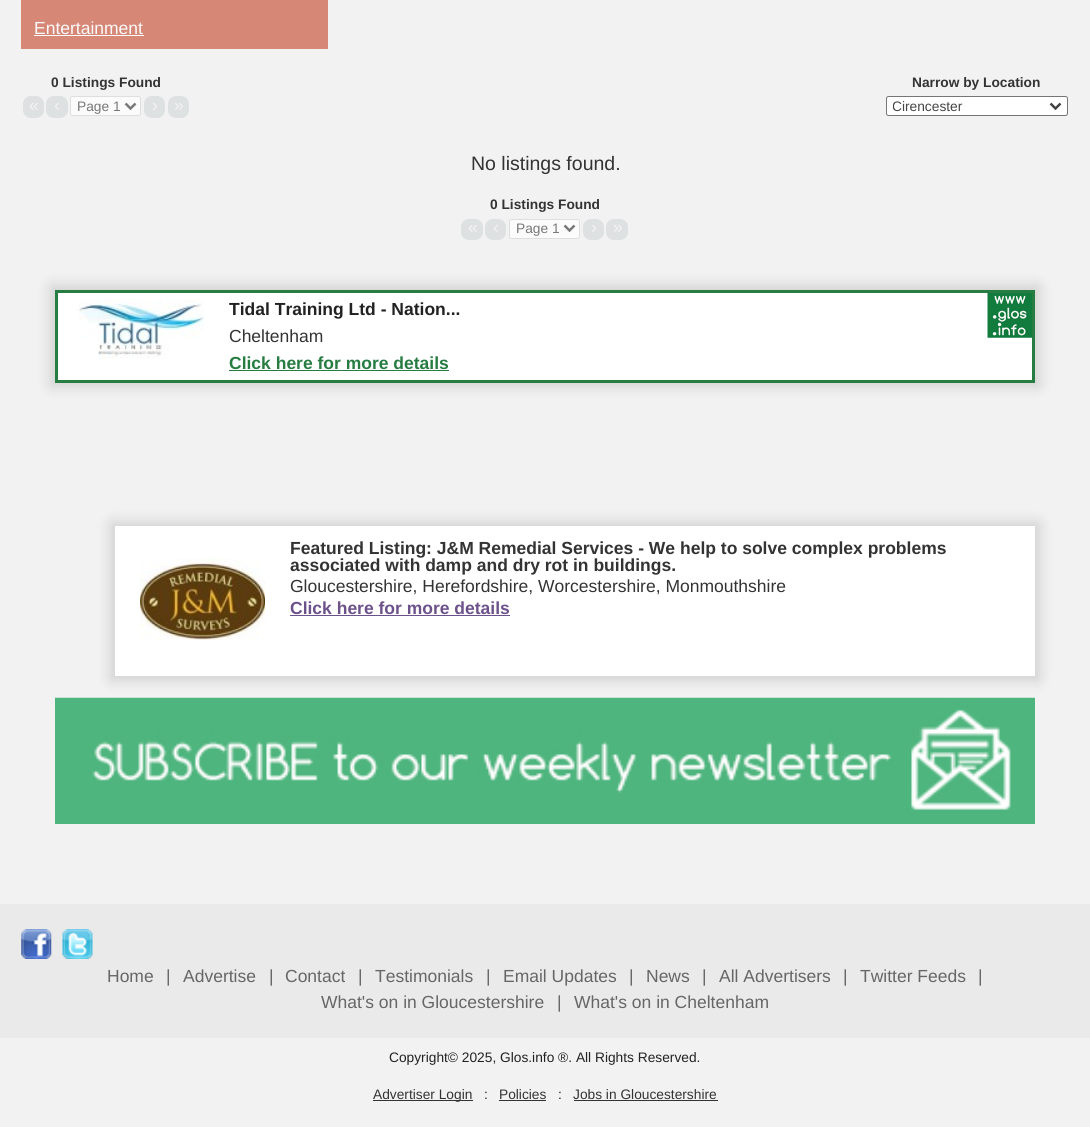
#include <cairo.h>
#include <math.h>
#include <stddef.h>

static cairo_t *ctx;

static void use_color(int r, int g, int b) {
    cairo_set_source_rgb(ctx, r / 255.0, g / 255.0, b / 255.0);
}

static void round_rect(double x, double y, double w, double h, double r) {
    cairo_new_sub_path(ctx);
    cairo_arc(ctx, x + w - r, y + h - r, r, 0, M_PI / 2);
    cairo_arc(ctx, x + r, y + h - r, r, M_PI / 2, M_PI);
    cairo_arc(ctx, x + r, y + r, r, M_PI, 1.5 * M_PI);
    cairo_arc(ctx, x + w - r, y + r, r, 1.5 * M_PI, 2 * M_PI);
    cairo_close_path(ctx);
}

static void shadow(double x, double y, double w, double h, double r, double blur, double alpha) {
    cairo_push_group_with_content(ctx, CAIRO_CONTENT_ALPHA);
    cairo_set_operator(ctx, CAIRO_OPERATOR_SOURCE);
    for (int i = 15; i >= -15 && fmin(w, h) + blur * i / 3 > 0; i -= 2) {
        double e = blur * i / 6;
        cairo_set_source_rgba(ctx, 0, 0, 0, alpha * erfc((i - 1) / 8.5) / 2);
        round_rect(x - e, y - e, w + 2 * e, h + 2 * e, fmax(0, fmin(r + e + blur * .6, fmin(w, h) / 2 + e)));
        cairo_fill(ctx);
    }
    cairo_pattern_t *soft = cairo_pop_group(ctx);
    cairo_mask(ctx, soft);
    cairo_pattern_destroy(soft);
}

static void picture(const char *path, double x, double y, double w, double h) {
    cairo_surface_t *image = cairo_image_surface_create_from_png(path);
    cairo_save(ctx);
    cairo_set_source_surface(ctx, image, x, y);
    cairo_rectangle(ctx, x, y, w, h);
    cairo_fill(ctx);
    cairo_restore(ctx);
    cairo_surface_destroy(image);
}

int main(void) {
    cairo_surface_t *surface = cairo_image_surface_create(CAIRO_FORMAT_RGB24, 1090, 1127);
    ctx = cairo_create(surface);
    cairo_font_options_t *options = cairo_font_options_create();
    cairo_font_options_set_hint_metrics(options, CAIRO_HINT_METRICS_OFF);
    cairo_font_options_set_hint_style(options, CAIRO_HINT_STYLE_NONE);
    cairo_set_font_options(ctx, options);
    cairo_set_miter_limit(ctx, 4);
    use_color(242, 242, 243);
    cairo_paint(ctx);
    use_color(214, 135, 118);
    cairo_rectangle(ctx, 21, 0, 307, 49);
    cairo_fill(ctx);
    cairo_select_font_face(ctx, "Liberation Sans", CAIRO_FONT_SLANT_NORMAL, CAIRO_FONT_WEIGHT_NORMAL);
    cairo_set_font_size(ctx, 17.5);
    use_color(251, 251, 251);
    cairo_move_to(ctx, 34, 34);
    cairo_show_text(ctx, "Entertainment");
    cairo_rectangle(ctx, 34, 35, 110, 1);
    cairo_fill(ctx);
    cairo_select_font_face(ctx, "Liberation Sans", CAIRO_FONT_SLANT_NORMAL, CAIRO_FONT_WEIGHT_BOLD);
    cairo_set_font_size(ctx, 13.75);
    use_color(51, 51, 51);
    cairo_move_to(ctx, 51, 87);
    cairo_show_text(ctx, "0 Listings Found");
    use_color(222, 225, 225);
    round_rect(23, 96, 21, 22, 8);
    cairo_fill(ctx);
    cairo_select_font_face(ctx, "Liberation Sans", CAIRO_FONT_SLANT_NORMAL, CAIRO_FONT_WEIGHT_NORMAL);
    cairo_set_font_size(ctx, 17.5);
    use_color(243, 243, 244);
    cairo_move_to(ctx, 29, 111);
    cairo_show_text(ctx, "«");
    use_color(222, 225, 225);
    round_rect(46, 96, 22, 22, 8);
    cairo_fill(ctx);
    use_color(243, 243, 244);
    cairo_move_to(ctx, 54, 111);
    cairo_show_text(ctx, "‹");
    use_color(251, 251, 251);
    round_rect(70.5, 96.5, 70, 19, 2);
    cairo_fill_preserve(ctx);
    use_color(222, 222, 222);
    cairo_set_line_width(ctx, 1);
    cairo_stroke(ctx);
    cairo_new_path(ctx);
    cairo_move_to(ctx, 125.5, 103.5);
    cairo_line_to(ctx, 130.5, 108.5);
    cairo_line_to(ctx, 135.5, 103.5);
    use_color(120, 120, 121);
    cairo_set_line_width(ctx, 2.5);
    cairo_stroke(ctx);
    cairo_set_font_size(ctx, 13.75);
    cairo_move_to(ctx, 77, 111);
    cairo_show_text(ctx, "Page 1");
    use_color(222, 225, 225);
    round_rect(144, 96, 21, 22, 8);
    cairo_fill(ctx);
    cairo_set_font_size(ctx, 17.5);
    use_color(243, 243, 244);
    cairo_move_to(ctx, 152, 111);
    cairo_show_text(ctx, "›");
    use_color(222, 225, 225);
    round_rect(168, 96, 21, 22, 8);
    cairo_fill(ctx);
    use_color(243, 243, 244);
    cairo_move_to(ctx, 174, 111);
    cairo_show_text(ctx, "»");
    cairo_select_font_face(ctx, "Liberation Sans", CAIRO_FONT_SLANT_NORMAL, CAIRO_FONT_WEIGHT_BOLD);
    cairo_set_font_size(ctx, 13.75);
    use_color(51, 51, 51);
    cairo_move_to(ctx, 912, 87);
    cairo_show_text(ctx, "Narrow by Location");
    use_color(255, 255, 255);
    round_rect(886.5, 96.5, 181, 19, 2);
    cairo_fill_preserve(ctx);
    use_color(118, 118, 118);
    cairo_set_line_width(ctx, 1);
    cairo_stroke(ctx);
    cairo_new_path(ctx);
    cairo_move_to(ctx, 1050.5, 103.5);
    cairo_line_to(ctx, 1055.5, 108.5);
    cairo_line_to(ctx, 1060.5, 103.5);
    use_color(68, 68, 68);
    cairo_set_line_width(ctx, 2.5);
    cairo_stroke(ctx);
    cairo_save(ctx);
    cairo_rectangle(ctx, 893, 98, 153, 17);
    cairo_clip(ctx);
    cairo_select_font_face(ctx, "Liberation Sans", CAIRO_FONT_SLANT_NORMAL, CAIRO_FONT_WEIGHT_NORMAL);
    cairo_move_to(ctx, 892, 111);
    cairo_show_text(ctx, "Cirencester");
    cairo_restore(ctx);
    cairo_select_font_face(ctx, "Liberation Sans", CAIRO_FONT_SLANT_NORMAL, CAIRO_FONT_WEIGHT_NORMAL);
    cairo_set_font_size(ctx, 19.5);
    use_color(51, 51, 51);
    cairo_move_to(ctx, 471, 170);
    cairo_show_text(ctx, "No listings found.");
    cairo_select_font_face(ctx, "Liberation Sans", CAIRO_FONT_SLANT_NORMAL, CAIRO_FONT_WEIGHT_BOLD);
    cairo_set_font_size(ctx, 13.75);
    cairo_move_to(ctx, 490, 209);
    cairo_show_text(ctx, "0 Listings Found");
    use_color(222, 225, 225);
    round_rect(461, 219, 22, 21, 8);
    cairo_fill(ctx);
    cairo_select_font_face(ctx, "Liberation Sans", CAIRO_FONT_SLANT_NORMAL, CAIRO_FONT_WEIGHT_NORMAL);
    cairo_set_font_size(ctx, 17.5);
    use_color(243, 243, 244);
    cairo_move_to(ctx, 468, 233);
    cairo_show_text(ctx, "«");
    use_color(222, 225, 225);
    round_rect(485, 219, 21, 21, 8);
    cairo_fill(ctx);
    use_color(243, 243, 244);
    cairo_move_to(ctx, 493, 233);
    cairo_show_text(ctx, "‹");
    use_color(251, 251, 251);
    round_rect(509.5, 219.5, 70, 19, 2);
    cairo_fill_preserve(ctx);
    use_color(222, 222, 222);
    cairo_set_line_width(ctx, 1);
    cairo_stroke(ctx);
    cairo_new_path(ctx);
    cairo_move_to(ctx, 564.5, 225.5);
    cairo_line_to(ctx, 569.5, 230.5);
    cairo_line_to(ctx, 574.5, 225.5);
    use_color(120, 120, 121);
    cairo_set_line_width(ctx, 2.5);
    cairo_stroke(ctx);
    cairo_set_font_size(ctx, 13.75);
    cairo_move_to(ctx, 516, 233);
    cairo_show_text(ctx, "Page 1");
    use_color(222, 225, 225);
    round_rect(583, 219, 21, 21, 8);
    cairo_fill(ctx);
    cairo_set_font_size(ctx, 17.5);
    use_color(243, 243, 244);
    cairo_move_to(ctx, 591, 233);
    cairo_show_text(ctx, "›");
    use_color(222, 225, 225);
    round_rect(606, 219, 22, 21, 8);
    cairo_fill(ctx);
    use_color(243, 243, 244);
    cairo_move_to(ctx, 613, 233);
    cairo_show_text(ctx, "»");
    use_color(0, 0, 0);
    shadow(51, 286, 988, 100, 0, 7.5, 0.15);
    use_color(255, 255, 255);
    cairo_rectangle(ctx, 58, 293, 974, 87);
    cairo_fill(ctx);
    picture("img1.png", 987, 293, 45, 45);
    cairo_rectangle(ctx, 56.5, 291.5, 977, 90);
    use_color(39, 124, 66);
    cairo_set_line_width(ctx, 3);
    cairo_stroke(ctx);
    picture("img2.png", 78, 299, 126, 60);
    cairo_select_font_face(ctx, "Liberation Sans", CAIRO_FONT_SLANT_NORMAL, CAIRO_FONT_WEIGHT_BOLD);
    use_color(34, 34, 34);
    cairo_move_to(ctx, 229, 315);
    cairo_show_text(ctx, "Tidal Training Ltd - Nation...");
    cairo_select_font_face(ctx, "Liberation Sans", CAIRO_FONT_SLANT_NORMAL, CAIRO_FONT_WEIGHT_NORMAL);
    use_color(51, 51, 51);
    cairo_move_to(ctx, 229, 342);
    cairo_show_text(ctx, "Cheltenham");
    cairo_select_font_face(ctx, "Liberation Sans", CAIRO_FONT_SLANT_NORMAL, CAIRO_FONT_WEIGHT_BOLD);
    use_color(39, 124, 66);
    cairo_move_to(ctx, 229, 369);
    cairo_show_text(ctx, "Click here for more details");
    cairo_rectangle(ctx, 229, 370, 220, 1);
    cairo_fill(ctx);
    picture("img4.png", 55, 697, 980, 127);
    use_color(0, 0, 0);
    shadow(111, 523, 928, 157, 0, 7.5, 0.15);
    use_color(255, 255, 255);
    cairo_rectangle(ctx, 115, 526, 920, 150);
    cairo_fill(ctx);
    picture("img3.png", 140, 558, 125, 82);
    use_color(51, 51, 51);
    cairo_move_to(ctx, 290, 554);
    cairo_show_text(ctx, "Featured Listing: J&M Remedial Services - We help to solve complex problems");
    cairo_move_to(ctx, 290, 571);
    cairo_show_text(ctx, "associated with damp and dry rot in buildings.");
    cairo_select_font_face(ctx, "Liberation Sans", CAIRO_FONT_SLANT_NORMAL, CAIRO_FONT_WEIGHT_NORMAL);
    cairo_move_to(ctx, 290, 592);
    cairo_show_text(ctx, "Gloucestershire, Herefordshire, Worcestershire, Monmouthshire");
    cairo_select_font_face(ctx, "Liberation Sans", CAIRO_FONT_SLANT_NORMAL, CAIRO_FONT_WEIGHT_BOLD);
    use_color(109, 81, 138);
    cairo_move_to(ctx, 290, 614);
    cairo_show_text(ctx, "Click here for more details");
    cairo_rectangle(ctx, 290, 615, 220, 1);
    cairo_fill(ctx);
    use_color(234, 234, 234);
    cairo_rectangle(ctx, 0, 904, 1090, 134);
    cairo_fill(ctx);
    picture("img5.png", 21, 929, 31, 30);
    picture("img6.png", 62, 929, 31, 30);
    cairo_select_font_face(ctx, "Liberation Sans", CAIRO_FONT_SLANT_NORMAL, CAIRO_FONT_WEIGHT_NORMAL);
    use_color(102, 102, 102);
    cairo_move_to(ctx, 107, 982);
    cairo_show_text(ctx, "Home");
    cairo_move_to(ctx, 166, 982);
    cairo_show_text(ctx, "|");
    cairo_move_to(ctx, 183, 982);
    cairo_show_text(ctx, "Advertise");
    cairo_move_to(ctx, 269, 982);
    cairo_show_text(ctx, "|");
    cairo_move_to(ctx, 285, 982);
    cairo_show_text(ctx, "Contact");
    cairo_move_to(ctx, 358, 982);
    cairo_show_text(ctx, "|");
    cairo_move_to(ctx, 375, 982);
    cairo_show_text(ctx, "Testimonials");
    cairo_move_to(ctx, 486, 982);
    cairo_show_text(ctx, "|");
    cairo_move_to(ctx, 503, 982);
    cairo_show_text(ctx, "Email Updates");
    cairo_move_to(ctx, 629, 982);
    cairo_show_text(ctx, "|");
    cairo_move_to(ctx, 646, 982);
    cairo_show_text(ctx, "News");
    cairo_move_to(ctx, 702, 982);
    cairo_show_text(ctx, "|");
    cairo_move_to(ctx, 719, 982);
    cairo_show_text(ctx, "All Advertisers");
    cairo_move_to(ctx, 843, 982);
    cairo_show_text(ctx, "|");
    cairo_move_to(ctx, 860, 982);
    cairo_show_text(ctx, "Twitter Feeds");
    cairo_move_to(ctx, 978, 982);
    cairo_show_text(ctx, "|");
    cairo_move_to(ctx, 321, 1008);
    cairo_show_text(ctx, "What's on in Gloucestershire");
    cairo_move_to(ctx, 557, 1008);
    cairo_show_text(ctx, "|");
    cairo_move_to(ctx, 574, 1008);
    cairo_show_text(ctx, "What's on in Cheltenham");
    cairo_set_font_size(ctx, 13.75);
    use_color(34, 34, 34);
    cairo_move_to(ctx, 389, 1062);
    cairo_show_text(ctx, "Copyright© 2025, Glos.info ®. All Rights Reserved.");
    use_color(51, 51, 51);
    cairo_rectangle(ctx, 373, 1100, 100, 1);
    cairo_fill(ctx);
    cairo_move_to(ctx, 373, 1099);
    cairo_show_text(ctx, "Advertiser Login");
    use_color(34, 34, 34);
    cairo_move_to(ctx, 484, 1099);
    cairo_show_text(ctx, ":");
    use_color(51, 51, 51);
    cairo_move_to(ctx, 499, 1099);
    cairo_show_text(ctx, "Policies");
    cairo_rectangle(ctx, 499, 1100, 47, 1);
    cairo_fill(ctx);
    use_color(34, 34, 34);
    cairo_move_to(ctx, 558, 1099);
    cairo_show_text(ctx, ":");
    use_color(51, 51, 51);
    cairo_move_to(ctx, 573, 1099);
    cairo_show_text(ctx, "Jobs in Gloucestershire");
    cairo_rectangle(ctx, 574, 1100, 144, 1);
    cairo_fill(ctx);
    cairo_surface_write_to_png(surface, "result.png");
    cairo_font_options_destroy(options);
    cairo_destroy(ctx);
    cairo_surface_destroy(surface);
    return 0;
}
